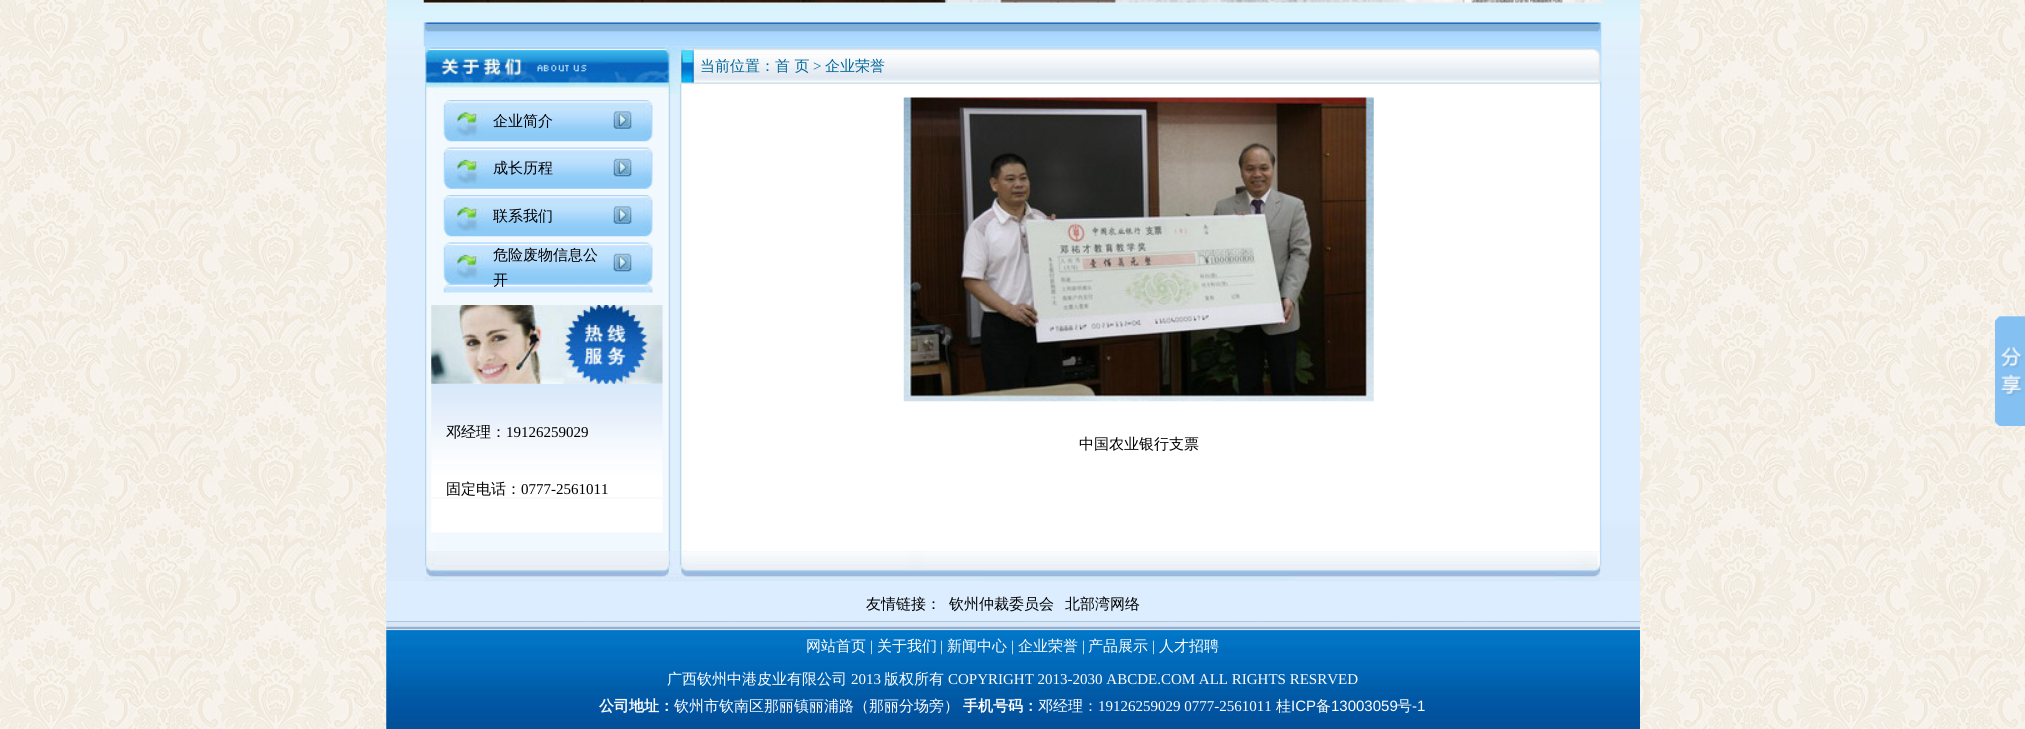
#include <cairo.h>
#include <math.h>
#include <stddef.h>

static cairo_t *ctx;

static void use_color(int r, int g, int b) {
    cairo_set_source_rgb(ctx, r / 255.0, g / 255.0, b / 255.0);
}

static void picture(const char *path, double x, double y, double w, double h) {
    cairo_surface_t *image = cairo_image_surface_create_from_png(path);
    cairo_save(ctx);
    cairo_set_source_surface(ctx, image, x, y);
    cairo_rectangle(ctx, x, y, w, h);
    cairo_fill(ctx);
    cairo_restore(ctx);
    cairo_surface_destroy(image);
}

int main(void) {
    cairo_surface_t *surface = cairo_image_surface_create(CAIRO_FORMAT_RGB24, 2025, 729);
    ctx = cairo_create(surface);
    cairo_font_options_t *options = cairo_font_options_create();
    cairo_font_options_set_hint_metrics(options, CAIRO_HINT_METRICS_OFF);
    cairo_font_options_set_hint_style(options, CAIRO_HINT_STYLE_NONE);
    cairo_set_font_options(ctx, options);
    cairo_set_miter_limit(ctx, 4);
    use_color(255, 255, 255);
    cairo_paint(ctx);
    picture("img1.png", 0, 0, 2025, 729);
    picture("img2.png", 386, 0, 1254, 581);
    cairo_rectangle(ctx, 423.5, -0.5, 1179, 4);
    use_color(238, 238, 238);
    cairo_set_line_width(ctx, 1);
    cairo_stroke(ctx);
    picture("img3.png", 423, 0, 1179, 3);
    picture("img5.png", 425, 46, 254, 506);
    picture("img12.png", 679, 46, 923, 506);
    picture("img13.png", 678, 46, 924, 42);
    picture("img4.png", 423, 22, 1179, 25);
    picture("img6.png", 425, 46, 254, 48);
    picture("img7.png", 443, 100, 210, 42);
    cairo_select_font_face(ctx, "WenQuanYi Zen Hei Medium", CAIRO_FONT_SLANT_NORMAL, CAIRO_FONT_WEIGHT_NORMAL);
    cairo_set_font_size(ctx, 15);
    use_color(0, 0, 0);
    cairo_move_to(ctx, 493, 126);
    cairo_show_text(ctx, "企业简介");
    picture("img8.png", 443, 147, 210, 42);
    cairo_move_to(ctx, 493, 173);
    cairo_show_text(ctx, "成长历程");
    picture("img7.png", 443, 195, 210, 42);
    cairo_move_to(ctx, 493, 221);
    cairo_show_text(ctx, "联系我们");
    picture("img9.png", 443, 242, 210, 51);
    cairo_move_to(ctx, 493, 260);
    cairo_show_text(ctx, "危险废物信息公");
    cairo_move_to(ctx, 493, 285);
    cairo_show_text(ctx, "开");
    picture("img11.png", 431, 383, 232, 150);
    picture("img10.png", 431, 305, 232, 79);
    cairo_move_to(ctx, 446, 437);
    cairo_show_text(ctx, "邓经理：");
    cairo_select_font_face(ctx, "Liberation Serif", CAIRO_FONT_SLANT_NORMAL, CAIRO_FONT_WEIGHT_NORMAL);
    cairo_move_to(ctx, 506, 437);
    cairo_show_text(ctx, "19126259029");
    cairo_select_font_face(ctx, "WenQuanYi Zen Hei Medium", CAIRO_FONT_SLANT_NORMAL, CAIRO_FONT_WEIGHT_NORMAL);
    cairo_move_to(ctx, 446, 494);
    cairo_show_text(ctx, "固定电话：");
    cairo_select_font_face(ctx, "Liberation Serif", CAIRO_FONT_SLANT_NORMAL, CAIRO_FONT_WEIGHT_NORMAL);
    cairo_move_to(ctx, 521, 494);
    cairo_show_text(ctx, "0777-2561011");
    cairo_select_font_face(ctx, "WenQuanYi Zen Hei Medium", CAIRO_FONT_SLANT_NORMAL, CAIRO_FONT_WEIGHT_NORMAL);
    use_color(0, 102, 153);
    cairo_move_to(ctx, 700, 71);
    cairo_show_text(ctx, "当前位置：首 页");
    cairo_select_font_face(ctx, "Liberation Serif", CAIRO_FONT_SLANT_NORMAL, CAIRO_FONT_WEIGHT_NORMAL);
    cairo_move_to(ctx, 813, 71);
    cairo_show_text(ctx, ">");
    cairo_select_font_face(ctx, "WenQuanYi Zen Hei Medium", CAIRO_FONT_SLANT_NORMAL, CAIRO_FONT_WEIGHT_NORMAL);
    cairo_move_to(ctx, 825, 71);
    cairo_show_text(ctx, "企业荣誉");
    picture("img14.png", 903, 97, 471, 305);
    use_color(0, 0, 0);
    cairo_move_to(ctx, 1079, 449);
    cairo_show_text(ctx, "中国农业银行支票");
    use_color(220, 237, 255);
    cairo_rectangle(ctx, 386, 581, 1254, 40);
    cairo_fill(ctx);
    picture("img15.png", 425, 551, 1177, 31);
    picture("img16.png", 1995, 316, 30, 110);
    use_color(0, 0, 0);
    cairo_move_to(ctx, 866, 609);
    cairo_show_text(ctx, "友情链接：");
    cairo_move_to(ctx, 949, 609);
    cairo_show_text(ctx, "钦州仲裁委员会");
    cairo_move_to(ctx, 1065, 609);
    cairo_show_text(ctx, "北部湾网络");
    picture("img17.png", 386, 621, 1254, 108);
    use_color(255, 255, 255);
    cairo_move_to(ctx, 806, 651);
    cairo_show_text(ctx, "网站首页");
    cairo_select_font_face(ctx, "Liberation Serif", CAIRO_FONT_SLANT_NORMAL, CAIRO_FONT_WEIGHT_NORMAL);
    cairo_move_to(ctx, 870, 651);
    cairo_show_text(ctx, "|");
    cairo_select_font_face(ctx, "WenQuanYi Zen Hei Medium", CAIRO_FONT_SLANT_NORMAL, CAIRO_FONT_WEIGHT_NORMAL);
    cairo_move_to(ctx, 877, 651);
    cairo_show_text(ctx, "关于我们");
    cairo_select_font_face(ctx, "Liberation Serif", CAIRO_FONT_SLANT_NORMAL, CAIRO_FONT_WEIGHT_NORMAL);
    cairo_move_to(ctx, 940, 651);
    cairo_show_text(ctx, "|");
    cairo_select_font_face(ctx, "WenQuanYi Zen Hei Medium", CAIRO_FONT_SLANT_NORMAL, CAIRO_FONT_WEIGHT_NORMAL);
    cairo_move_to(ctx, 947, 651);
    cairo_show_text(ctx, "新闻中心");
    cairo_select_font_face(ctx, "Liberation Serif", CAIRO_FONT_SLANT_NORMAL, CAIRO_FONT_WEIGHT_NORMAL);
    cairo_move_to(ctx, 1011, 651);
    cairo_show_text(ctx, "|");
    cairo_select_font_face(ctx, "WenQuanYi Zen Hei Medium", CAIRO_FONT_SLANT_NORMAL, CAIRO_FONT_WEIGHT_NORMAL);
    cairo_move_to(ctx, 1018, 651);
    cairo_show_text(ctx, "企业荣誉");
    cairo_select_font_face(ctx, "Liberation Serif", CAIRO_FONT_SLANT_NORMAL, CAIRO_FONT_WEIGHT_NORMAL);
    cairo_move_to(ctx, 1082, 651);
    cairo_show_text(ctx, "|");
    cairo_select_font_face(ctx, "WenQuanYi Zen Hei Medium", CAIRO_FONT_SLANT_NORMAL, CAIRO_FONT_WEIGHT_NORMAL);
    cairo_move_to(ctx, 1088, 651);
    cairo_show_text(ctx, "产品展示");
    cairo_select_font_face(ctx, "Liberation Serif", CAIRO_FONT_SLANT_NORMAL, CAIRO_FONT_WEIGHT_NORMAL);
    cairo_move_to(ctx, 1152, 651);
    cairo_show_text(ctx, "|");
    cairo_select_font_face(ctx, "WenQuanYi Zen Hei Medium", CAIRO_FONT_SLANT_NORMAL, CAIRO_FONT_WEIGHT_NORMAL);
    cairo_move_to(ctx, 1159, 651);
    cairo_show_text(ctx, "人才招聘");
    cairo_move_to(ctx, 667, 684);
    cairo_show_text(ctx, "广西钦州中港皮业有限公司");
    cairo_select_font_face(ctx, "Liberation Serif", CAIRO_FONT_SLANT_NORMAL, CAIRO_FONT_WEIGHT_NORMAL);
    cairo_move_to(ctx, 851, 684);
    cairo_show_text(ctx, "2013");
    cairo_select_font_face(ctx, "WenQuanYi Zen Hei Medium", CAIRO_FONT_SLANT_NORMAL, CAIRO_FONT_WEIGHT_NORMAL);
    cairo_move_to(ctx, 884, 684);
    cairo_show_text(ctx, "版权所有");
    cairo_select_font_face(ctx, "Liberation Serif", CAIRO_FONT_SLANT_NORMAL, CAIRO_FONT_WEIGHT_NORMAL);
    cairo_move_to(ctx, 948, 684);
    cairo_show_text(ctx, "COPYRIGHT 2013-2030 ABCDE.COM ALL RIGHTS RESRVED");
    cairo_select_font_face(ctx, "WenQuanYi Zen Hei", CAIRO_FONT_SLANT_NORMAL, CAIRO_FONT_WEIGHT_BOLD);
    cairo_move_to(ctx, 599, 711);
    cairo_show_text(ctx, "公司地址：");
    cairo_select_font_face(ctx, "WenQuanYi Zen Hei Medium", CAIRO_FONT_SLANT_NORMAL, CAIRO_FONT_WEIGHT_NORMAL);
    cairo_move_to(ctx, 674, 711);
    cairo_show_text(ctx, "钦州市钦南区那丽镇丽浦路（那丽分场旁）");
    cairo_select_font_face(ctx, "WenQuanYi Zen Hei", CAIRO_FONT_SLANT_NORMAL, CAIRO_FONT_WEIGHT_BOLD);
    cairo_move_to(ctx, 963, 711);
    cairo_show_text(ctx, "手机号码：");
    cairo_select_font_face(ctx, "WenQuanYi Zen Hei Medium", CAIRO_FONT_SLANT_NORMAL, CAIRO_FONT_WEIGHT_NORMAL);
    cairo_move_to(ctx, 1038, 711);
    cairo_show_text(ctx, "邓经理：");
    cairo_select_font_face(ctx, "Liberation Serif", CAIRO_FONT_SLANT_NORMAL, CAIRO_FONT_WEIGHT_NORMAL);
    cairo_move_to(ctx, 1098, 711);
    cairo_show_text(ctx, "19126259029 0777-2561011");
    cairo_select_font_face(ctx, "WenQuanYi Zen Hei Medium", CAIRO_FONT_SLANT_NORMAL, CAIRO_FONT_WEIGHT_NORMAL);
    cairo_move_to(ctx, 1276, 711);
    cairo_show_text(ctx, "桂");
    cairo_select_font_face(ctx, "Liberation Sans", CAIRO_FONT_SLANT_NORMAL, CAIRO_FONT_WEIGHT_NORMAL);
    cairo_move_to(ctx, 1291, 711);
    cairo_show_text(ctx, "ICP");
    cairo_select_font_face(ctx, "WenQuanYi Zen Hei Medium", CAIRO_FONT_SLANT_NORMAL, CAIRO_FONT_WEIGHT_NORMAL);
    cairo_move_to(ctx, 1316, 711);
    cairo_show_text(ctx, "备");
    cairo_select_font_face(ctx, "Liberation Sans", CAIRO_FONT_SLANT_NORMAL, CAIRO_FONT_WEIGHT_NORMAL);
    cairo_move_to(ctx, 1331, 711);
    cairo_show_text(ctx, "13003059");
    cairo_select_font_face(ctx, "WenQuanYi Zen Hei Medium", CAIRO_FONT_SLANT_NORMAL, CAIRO_FONT_WEIGHT_NORMAL);
    cairo_move_to(ctx, 1397, 711);
    cairo_show_text(ctx, "号");
    cairo_select_font_face(ctx, "Liberation Sans", CAIRO_FONT_SLANT_NORMAL, CAIRO_FONT_WEIGHT_NORMAL);
    cairo_move_to(ctx, 1412, 711);
    cairo_show_text(ctx, "-1");
    cairo_surface_write_to_png(surface, "result.png");
    cairo_font_options_destroy(options);
    cairo_destroy(ctx);
    cairo_surface_destroy(surface);
    return 0;
}
